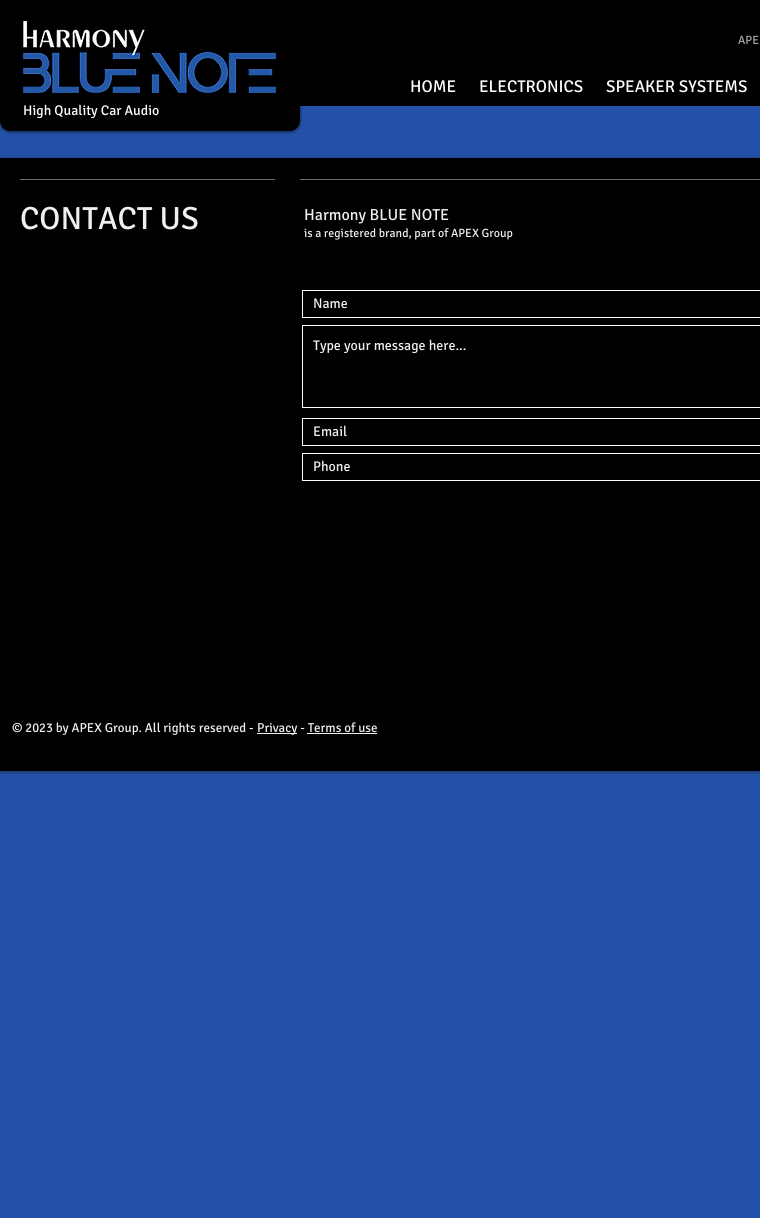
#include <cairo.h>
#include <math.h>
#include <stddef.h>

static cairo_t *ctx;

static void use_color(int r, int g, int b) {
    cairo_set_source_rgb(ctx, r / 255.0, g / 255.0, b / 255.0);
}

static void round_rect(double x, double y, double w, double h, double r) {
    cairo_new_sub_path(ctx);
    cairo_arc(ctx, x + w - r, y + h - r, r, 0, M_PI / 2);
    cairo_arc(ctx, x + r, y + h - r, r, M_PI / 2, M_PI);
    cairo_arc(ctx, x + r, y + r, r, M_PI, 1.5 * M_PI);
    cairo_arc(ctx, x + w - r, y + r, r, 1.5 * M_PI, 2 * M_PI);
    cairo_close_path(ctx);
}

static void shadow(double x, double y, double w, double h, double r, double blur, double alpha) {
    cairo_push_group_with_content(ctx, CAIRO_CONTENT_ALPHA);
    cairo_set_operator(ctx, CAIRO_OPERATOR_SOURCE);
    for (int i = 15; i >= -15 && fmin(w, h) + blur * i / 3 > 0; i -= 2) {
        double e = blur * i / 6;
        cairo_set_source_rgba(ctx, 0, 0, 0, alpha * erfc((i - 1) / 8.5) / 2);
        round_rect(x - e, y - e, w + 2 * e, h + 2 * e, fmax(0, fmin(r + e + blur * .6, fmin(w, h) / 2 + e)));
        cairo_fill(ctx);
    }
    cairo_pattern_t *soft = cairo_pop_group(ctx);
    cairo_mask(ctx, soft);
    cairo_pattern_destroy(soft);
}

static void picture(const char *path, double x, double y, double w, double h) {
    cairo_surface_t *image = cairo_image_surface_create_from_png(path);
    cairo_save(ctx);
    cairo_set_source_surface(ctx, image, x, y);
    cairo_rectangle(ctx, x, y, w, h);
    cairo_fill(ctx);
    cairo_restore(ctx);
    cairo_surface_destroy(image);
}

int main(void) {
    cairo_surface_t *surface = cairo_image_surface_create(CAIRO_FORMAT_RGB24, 760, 1218);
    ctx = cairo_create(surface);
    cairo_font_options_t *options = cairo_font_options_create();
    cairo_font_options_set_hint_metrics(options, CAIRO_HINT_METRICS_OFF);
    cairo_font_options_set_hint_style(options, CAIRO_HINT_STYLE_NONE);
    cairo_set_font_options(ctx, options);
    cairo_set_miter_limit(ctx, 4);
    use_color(36, 82, 170);
    cairo_paint(ctx);
    use_color(0, 0, 0);
    cairo_rectangle(ctx, 0, 0, 760, 106);
    cairo_fill(ctx);
    cairo_select_font_face(ctx, "Signika", CAIRO_FONT_SLANT_NORMAL, CAIRO_FONT_WEIGHT_NORMAL);
    cairo_set_font_size(ctx, 12);
    use_color(169, 169, 169);
    cairo_move_to(ctx, 738, 44);
    cairo_show_text(ctx, "APE");
    cairo_set_font_size(ctx, 17);
    use_color(255, 255, 255);
    cairo_move_to(ctx, 410, 92);
    cairo_show_text(ctx, "HOME");
    cairo_move_to(ctx, 479, 92);
    cairo_show_text(ctx, "ELECTRONICS");
    cairo_move_to(ctx, 606, 92);
    cairo_show_text(ctx, "SPEAKER SYSTEMS");
    use_color(0, 0, 0);
    shadow(0, 1, 300, 131, 10, 2, 0.6);
    use_color(0, 0, 0);
    round_rect(0, 0, 300, 131, 10);
    cairo_fill(ctx);
    picture("img1.png", 23, 21, 253, 72);
    cairo_set_font_size(ctx, 14);
    use_color(255, 255, 255);
    cairo_move_to(ctx, 23, 115);
    cairo_show_text(ctx, "High Quality Car Audio");
    use_color(0, 0, 0);
    shadow(0, 159, 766, 528, 0, 2, 0.6);
    use_color(0, 0, 0);
    cairo_rectangle(ctx, 0, 158, 760, 528);
    cairo_fill(ctx);
    use_color(110, 108, 108);
    cairo_rectangle(ctx, 20, 179, 255, 1);
    cairo_fill(ctx);
    cairo_rectangle(ctx, 300, 179, 460, 1);
    cairo_fill(ctx);
    cairo_set_font_size(ctx, 32);
    use_color(239, 239, 239);
    cairo_move_to(ctx, 20, 229);
    cairo_show_text(ctx, "CONTACT US");
    cairo_set_font_size(ctx, 16);
    cairo_move_to(ctx, 304, 220);
    cairo_show_text(ctx, "Harmony BLUE NOTE");
    cairo_set_font_size(ctx, 12);
    cairo_move_to(ctx, 304, 237);
    cairo_show_text(ctx, "is a registered brand, part of APEX Group");
    cairo_rectangle(ctx, 302.5, 290.5, 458, 27);
    use_color(255, 255, 255);
    cairo_set_line_width(ctx, 1);
    cairo_stroke(ctx);
    cairo_set_font_size(ctx, 14);
    use_color(239, 239, 239);
    cairo_move_to(ctx, 313, 308);
    cairo_show_text(ctx, "Name");
    cairo_rectangle(ctx, 302.5, 325.5, 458, 82);
    use_color(255, 255, 255);
    cairo_stroke(ctx);
    use_color(239, 239, 239);
    cairo_move_to(ctx, 313, 350);
    cairo_show_text(ctx, "Type your message here...");
    cairo_rectangle(ctx, 302.5, 418.5, 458, 27);
    use_color(255, 255, 255);
    cairo_stroke(ctx);
    use_color(239, 239, 239);
    cairo_move_to(ctx, 313, 436);
    cairo_show_text(ctx, "Email");
    cairo_rectangle(ctx, 302.5, 453.5, 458, 27);
    use_color(255, 255, 255);
    cairo_stroke(ctx);
    use_color(239, 239, 239);
    cairo_move_to(ctx, 313, 471);
    cairo_show_text(ctx, "Phone");
    use_color(0, 0, 0);
    shadow(0, 686, 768, 85, 0, 2.5, 0.7);
    use_color(0, 0, 0);
    cairo_rectangle(ctx, 0, 686, 760, 85);
    cairo_fill(ctx);
    cairo_set_font_size(ctx, 13);
    use_color(239, 239, 239);
    cairo_move_to(ctx, 12, 732);
    cairo_show_text(ctx, "© 2023 by APEX Group. All rights reserved -");
    cairo_rectangle(ctx, 257, 733, 40, 1);
    cairo_fill(ctx);
    cairo_move_to(ctx, 257, 732);
    cairo_show_text(ctx, "Privacy - Terms of use");
    cairo_rectangle(ctx, 307, 733, 70, 1);
    cairo_fill(ctx);
    cairo_surface_write_to_png(surface, "result.png");
    cairo_font_options_destroy(options);
    cairo_destroy(ctx);
    cairo_surface_destroy(surface);
    return 0;
}
